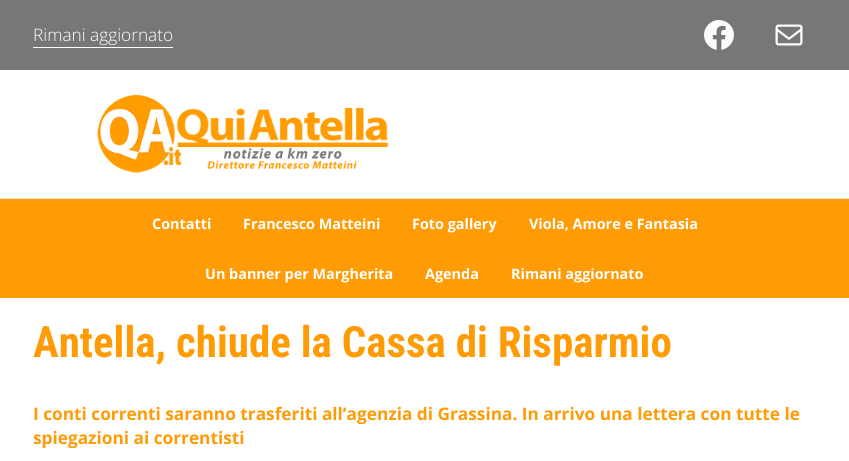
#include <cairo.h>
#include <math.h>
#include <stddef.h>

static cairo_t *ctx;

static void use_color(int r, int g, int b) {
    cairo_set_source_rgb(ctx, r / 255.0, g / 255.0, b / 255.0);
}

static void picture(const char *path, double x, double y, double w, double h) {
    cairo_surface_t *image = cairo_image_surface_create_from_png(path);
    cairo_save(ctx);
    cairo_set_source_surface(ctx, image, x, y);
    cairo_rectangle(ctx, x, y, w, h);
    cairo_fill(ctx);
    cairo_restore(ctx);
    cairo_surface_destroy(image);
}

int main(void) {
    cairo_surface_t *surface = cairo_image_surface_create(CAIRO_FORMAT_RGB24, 849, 461);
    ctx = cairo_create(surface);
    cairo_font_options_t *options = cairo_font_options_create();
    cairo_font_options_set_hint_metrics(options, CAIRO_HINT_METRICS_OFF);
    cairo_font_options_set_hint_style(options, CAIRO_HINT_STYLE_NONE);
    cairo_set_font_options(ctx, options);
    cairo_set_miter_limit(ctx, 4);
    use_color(255, 255, 255);
    cairo_paint(ctx);
    use_color(119, 119, 119);
    cairo_rectangle(ctx, 0, 0, 849, 70);
    cairo_fill(ctx);
    cairo_select_font_face(ctx, "Open Sans Light", CAIRO_FONT_SLANT_NORMAL, CAIRO_FONT_WEIGHT_NORMAL);
    cairo_set_font_size(ctx, 17.25);
    use_color(255, 255, 255);
    cairo_move_to(ctx, 33, 41);
    cairo_show_text(ctx, "Rimani aggiornato");
    use_color(252, 252, 252);
    cairo_rectangle(ctx, 33, 47, 140, 1);
    cairo_fill(ctx);
    picture("img1.png", 704, 20, 30, 30);
    picture("img2.png", 775, 24, 28, 22);
    use_color(224, 224, 224);
    cairo_rectangle(ctx, 0, 198, 849, 1);
    cairo_fill(ctx);
    picture("img3.png", 97, 94, 292, 79);
    use_color(255, 155, 5);
    cairo_rectangle(ctx, 0, 199, 849, 99);
    cairo_fill(ctx);
    cairo_select_font_face(ctx, "Open Sans", CAIRO_FONT_SLANT_NORMAL, CAIRO_FONT_WEIGHT_BOLD);
    cairo_set_font_size(ctx, 14.4);
    use_color(255, 255, 255);
    cairo_move_to(ctx, 152, 229);
    cairo_show_text(ctx, "Contatti");
    cairo_move_to(ctx, 243, 229);
    cairo_show_text(ctx, "Francesco Matteini");
    cairo_move_to(ctx, 412, 229);
    cairo_show_text(ctx, "Foto gallery");
    cairo_move_to(ctx, 529, 229);
    cairo_show_text(ctx, "Viola, Amore e Fantasia");
    cairo_move_to(ctx, 205, 279);
    cairo_show_text(ctx, "Un banner per Margherita");
    cairo_move_to(ctx, 425, 279);
    cairo_show_text(ctx, "Agenda");
    cairo_move_to(ctx, 511, 279);
    cairo_show_text(ctx, "Rimani aggiornato");
    cairo_select_font_face(ctx, "Roboto Condensed", CAIRO_FONT_SLANT_NORMAL, CAIRO_FONT_WEIGHT_BOLD);
    cairo_set_font_size(ctx, 43);
    use_color(255, 155, 5);
    cairo_move_to(ctx, 33, 357);
    cairo_show_text(ctx, "Antella, chiude la Cassa di Risparmio");
    cairo_select_font_face(ctx, "Open Sans", CAIRO_FONT_SLANT_NORMAL, CAIRO_FONT_WEIGHT_BOLD);
    cairo_set_font_size(ctx, 17.25);
    cairo_move_to(ctx, 33, 420);
    cairo_show_text(ctx, "I conti correnti saranno trasferiti all’agenzia di Grassina. In arrivo una lettera con tutte le");
    cairo_move_to(ctx, 33, 444);
    cairo_show_text(ctx, "spiegazioni ai correntisti");
    cairo_surface_write_to_png(surface, "result.png");
    cairo_font_options_destroy(options);
    cairo_destroy(ctx);
    cairo_surface_destroy(surface);
    return 0;
}
